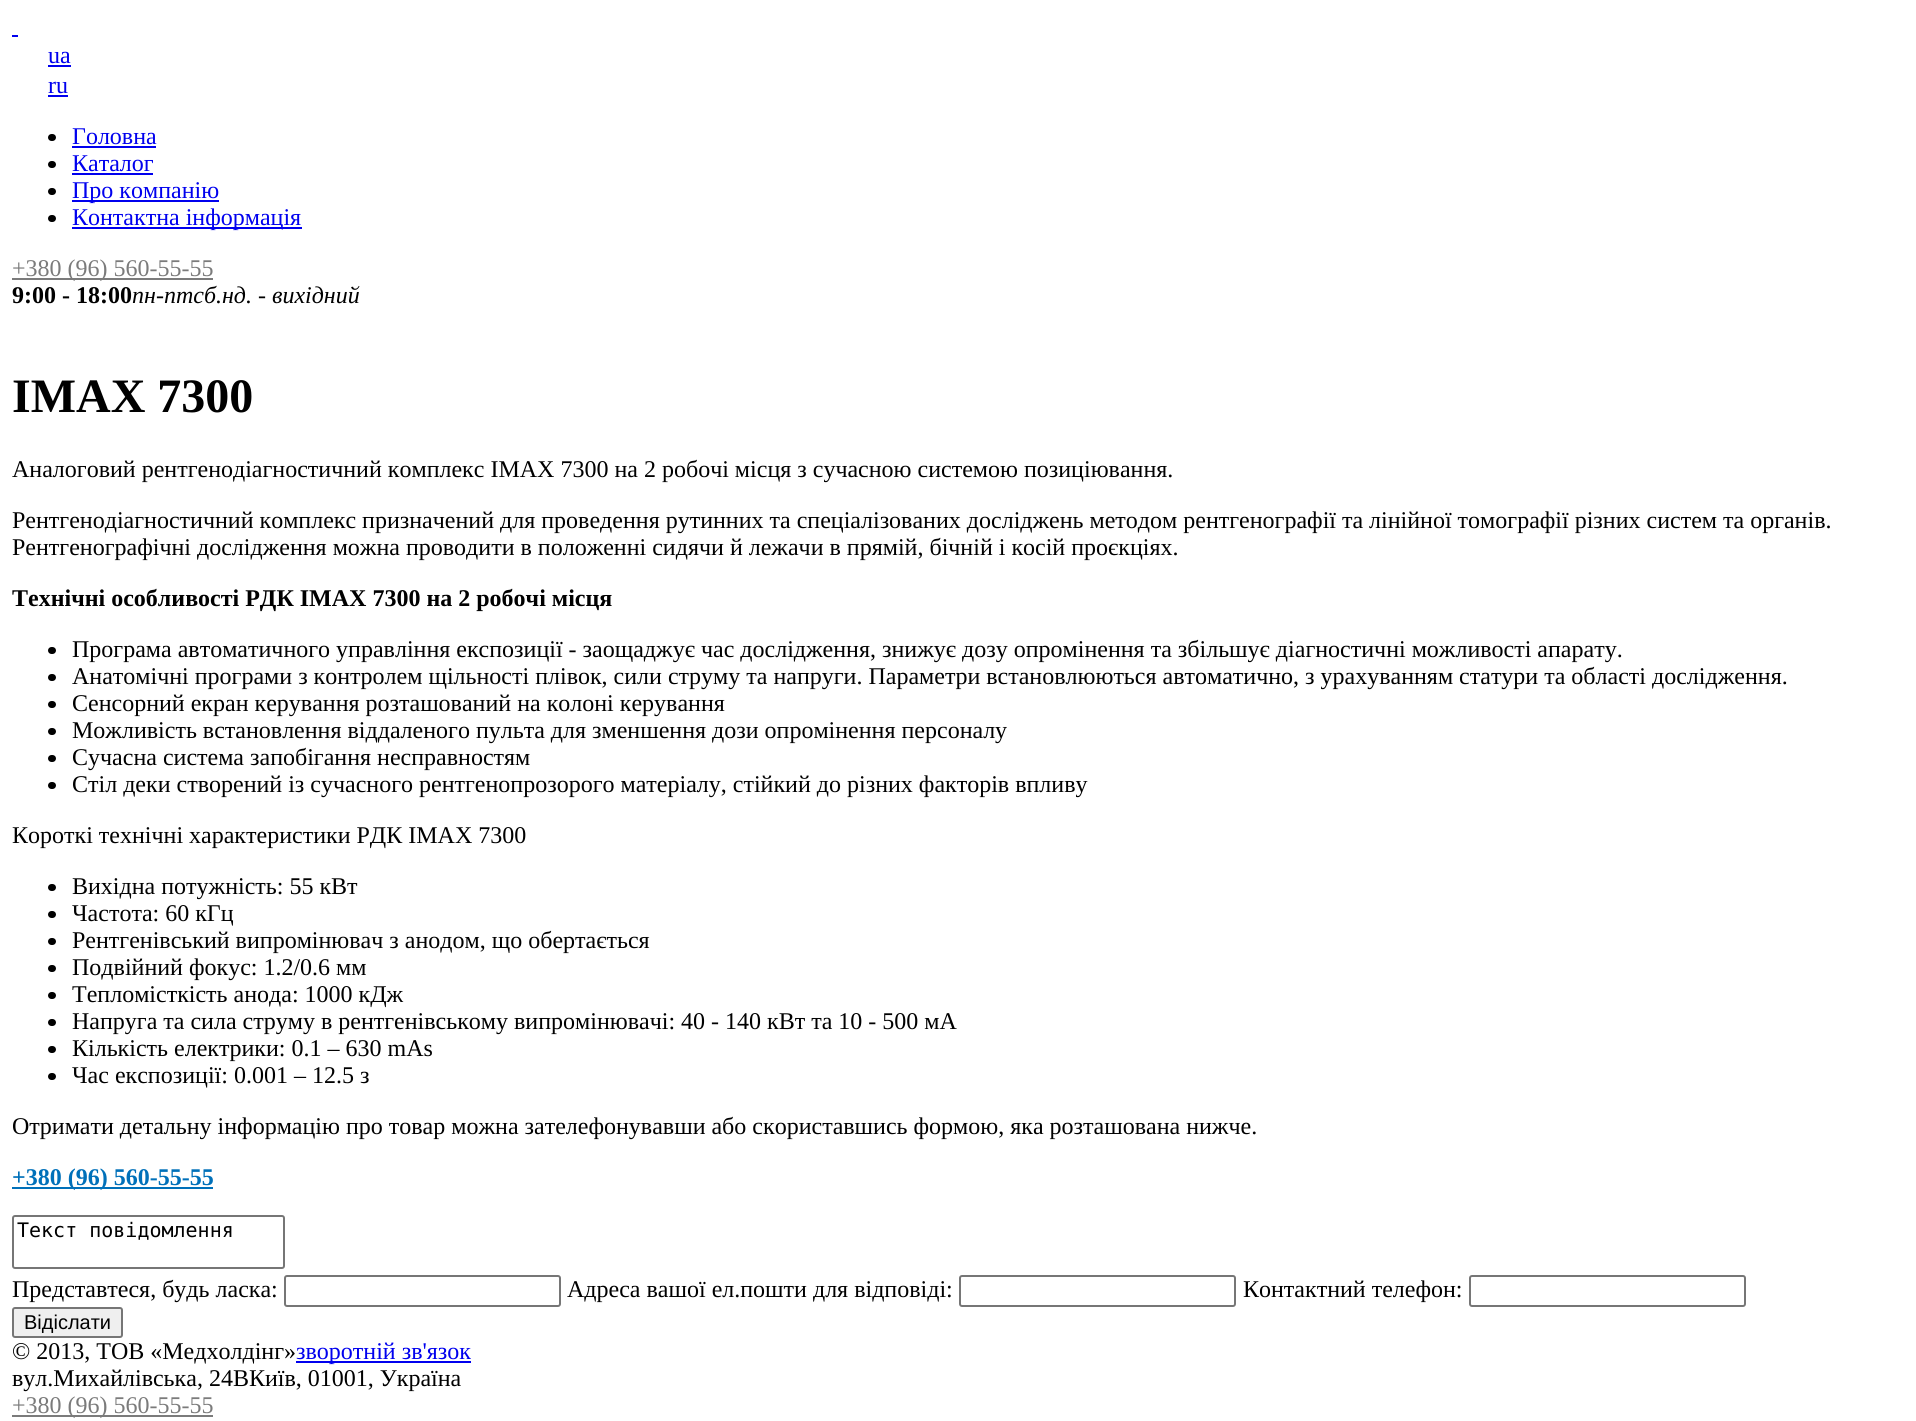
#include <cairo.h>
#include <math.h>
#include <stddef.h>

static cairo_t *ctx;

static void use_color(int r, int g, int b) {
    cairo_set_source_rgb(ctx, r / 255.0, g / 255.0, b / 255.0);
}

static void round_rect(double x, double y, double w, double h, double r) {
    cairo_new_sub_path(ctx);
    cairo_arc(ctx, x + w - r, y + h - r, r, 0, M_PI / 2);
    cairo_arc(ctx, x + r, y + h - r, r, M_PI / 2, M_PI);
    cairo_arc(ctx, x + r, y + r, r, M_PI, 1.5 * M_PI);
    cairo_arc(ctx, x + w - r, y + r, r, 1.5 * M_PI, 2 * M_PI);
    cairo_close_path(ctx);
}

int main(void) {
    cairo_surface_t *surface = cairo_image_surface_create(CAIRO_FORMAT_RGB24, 1916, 1421);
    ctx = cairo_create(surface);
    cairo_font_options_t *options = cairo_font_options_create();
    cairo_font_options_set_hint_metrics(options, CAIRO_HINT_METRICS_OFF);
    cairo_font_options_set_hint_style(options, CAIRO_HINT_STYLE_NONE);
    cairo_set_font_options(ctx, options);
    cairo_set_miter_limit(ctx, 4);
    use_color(255, 255, 255);
    cairo_paint(ctx);
    use_color(0, 0, 238);
    cairo_rectangle(ctx, 12, 35, 6, 2);
    cairo_fill(ctx);
    cairo_select_font_face(ctx, "Liberation Serif", CAIRO_FONT_SLANT_NORMAL, CAIRO_FONT_WEIGHT_NORMAL);
    cairo_set_font_size(ctx, 24);
    cairo_move_to(ctx, 48, 63);
    cairo_show_text(ctx, "ua");
    cairo_rectangle(ctx, 48, 65, 23, 2);
    cairo_fill(ctx);
    cairo_move_to(ctx, 48, 93);
    cairo_show_text(ctx, "ru");
    cairo_rectangle(ctx, 48, 95, 20, 2);
    cairo_fill(ctx);
    use_color(0, 0, 0);
    round_rect(48, 134, 8, 7, 3.5);
    cairo_fill(ctx);
    use_color(0, 0, 238);
    cairo_move_to(ctx, 72, 144);
    cairo_show_text(ctx, "Головна");
    cairo_rectangle(ctx, 72, 146, 84, 2);
    cairo_fill(ctx);
    use_color(0, 0, 0);
    round_rect(48, 161, 8, 7, 3.5);
    cairo_fill(ctx);
    use_color(0, 0, 238);
    cairo_move_to(ctx, 72, 171);
    cairo_show_text(ctx, "Каталог");
    cairo_rectangle(ctx, 72, 173, 81, 2);
    cairo_fill(ctx);
    use_color(0, 0, 0);
    round_rect(48, 188, 8, 7, 3.5);
    cairo_fill(ctx);
    use_color(0, 0, 238);
    cairo_rectangle(ctx, 72, 200, 147, 2);
    cairo_fill(ctx);
    cairo_move_to(ctx, 72, 198);
    cairo_show_text(ctx, "Про компанію");
    use_color(0, 0, 0);
    round_rect(48, 215, 8, 7, 3.5);
    cairo_fill(ctx);
    use_color(0, 0, 238);
    cairo_rectangle(ctx, 72, 227, 230, 2);
    cairo_fill(ctx);
    cairo_move_to(ctx, 72, 225);
    cairo_show_text(ctx, "Контактна інформація");
    use_color(123, 123, 123);
    cairo_rectangle(ctx, 12, 278, 201, 2);
    cairo_fill(ctx);
    cairo_move_to(ctx, 12, 276);
    cairo_show_text(ctx, "+380 (96) 560-55-55");
    cairo_select_font_face(ctx, "Liberation Serif", CAIRO_FONT_SLANT_NORMAL, CAIRO_FONT_WEIGHT_BOLD);
    use_color(0, 0, 0);
    cairo_move_to(ctx, 12, 303);
    cairo_show_text(ctx, "9:00 - 18:00");
    cairo_select_font_face(ctx, "Liberation Serif", CAIRO_FONT_SLANT_ITALIC, CAIRO_FONT_WEIGHT_NORMAL);
    cairo_move_to(ctx, 132, 303);
    cairo_show_text(ctx, "пн-птсб.нд. - вихідний");
    cairo_select_font_face(ctx, "Liberation Serif", CAIRO_FONT_SLANT_NORMAL, CAIRO_FONT_WEIGHT_BOLD);
    cairo_set_font_size(ctx, 48);
    cairo_move_to(ctx, 12, 412);
    cairo_show_text(ctx, "IMAX 7300");
    cairo_select_font_face(ctx, "Liberation Serif", CAIRO_FONT_SLANT_NORMAL, CAIRO_FONT_WEIGHT_NORMAL);
    cairo_set_font_size(ctx, 24);
    cairo_move_to(ctx, 12, 477);
    cairo_show_text(ctx, "Аналоговий рентгенодіагностичний комплекс IMAX 7300 на 2 робочі місця з сучасною системою позиціювання.");
    cairo_move_to(ctx, 12, 528);
    cairo_show_text(ctx, "Рентгенодіагностичний комплекс призначений для проведення рутинних та спеціалізованих досліджень методом рентгенографії та лінійної томографії різних систем та органів.");
    cairo_move_to(ctx, 12, 555);
    cairo_show_text(ctx, "Рентгенографічні дослідження можна проводити в положенні сидячи й лежачи в прямій, бічній і косій проєкціях.");
    cairo_select_font_face(ctx, "Liberation Serif", CAIRO_FONT_SLANT_NORMAL, CAIRO_FONT_WEIGHT_BOLD);
    cairo_move_to(ctx, 12, 606);
    cairo_show_text(ctx, "Технічні особливості РДК IMAX 7300 на 2 робочі місця");
    round_rect(48, 647, 8, 7, 3.5);
    cairo_fill(ctx);
    cairo_select_font_face(ctx, "Liberation Serif", CAIRO_FONT_SLANT_NORMAL, CAIRO_FONT_WEIGHT_NORMAL);
    cairo_move_to(ctx, 72, 657);
    cairo_show_text(ctx, "Програма автоматичного управління експозиції - заощаджує час дослідження, знижує дозу опромінення та збільшує діагностичні можливості апарату.");
    round_rect(48, 674, 8, 7, 3.5);
    cairo_fill(ctx);
    cairo_move_to(ctx, 72, 684);
    cairo_show_text(ctx, "Анатомічні програми з контролем щільності плівок, сили струму та напруги. Параметри встановлюються автоматично, з урахуванням статури та області дослідження.");
    round_rect(48, 701, 8, 7, 3.5);
    cairo_fill(ctx);
    cairo_move_to(ctx, 72, 711);
    cairo_show_text(ctx, "Сенсорний екран керування розташований на колоні керування");
    round_rect(48, 728, 8, 7, 3.5);
    cairo_fill(ctx);
    cairo_move_to(ctx, 72, 738);
    cairo_show_text(ctx, "Можливість встановлення віддаленого пульта для зменшення дози опромінення персоналу");
    round_rect(48, 755, 8, 7, 3.5);
    cairo_fill(ctx);
    cairo_move_to(ctx, 72, 765);
    cairo_show_text(ctx, "Сучасна система запобігання несправностям");
    round_rect(48, 782, 8, 7, 3.5);
    cairo_fill(ctx);
    cairo_move_to(ctx, 72, 792);
    cairo_show_text(ctx, "Стіл деки створений із сучасного рентгенопрозорого матеріалу, стійкий до різних факторів впливу");
    cairo_move_to(ctx, 12, 843);
    cairo_show_text(ctx, "Короткі технічні характеристики РДК IMAX 7300");
    round_rect(48, 884, 8, 7, 3.5);
    cairo_fill(ctx);
    cairo_move_to(ctx, 72, 894);
    cairo_show_text(ctx, "Вихідна потужність: 55 кВт");
    round_rect(48, 911, 8, 7, 3.5);
    cairo_fill(ctx);
    cairo_move_to(ctx, 72, 921);
    cairo_show_text(ctx, "Частота: 60 кГц");
    round_rect(48, 938, 8, 7, 3.5);
    cairo_fill(ctx);
    cairo_move_to(ctx, 72, 948);
    cairo_show_text(ctx, "Рентгенівський випромінювач з анодом, що обертається");
    round_rect(48, 965, 8, 7, 3.5);
    cairo_fill(ctx);
    cairo_move_to(ctx, 72, 975);
    cairo_show_text(ctx, "Подвійний фокус: 1.2/0.6 мм");
    round_rect(48, 992, 8, 7, 3.5);
    cairo_fill(ctx);
    cairo_move_to(ctx, 72, 1002);
    cairo_show_text(ctx, "Тепломісткість анода: 1000 кДж");
    round_rect(48, 1019, 8, 7, 3.5);
    cairo_fill(ctx);
    cairo_move_to(ctx, 72, 1029);
    cairo_show_text(ctx, "Напруга та сила струму в рентгенівському випромінювачі: 40 - 140 кВт та 10 - 500 мА");
    round_rect(48, 1046, 8, 7, 3.5);
    cairo_fill(ctx);
    cairo_move_to(ctx, 72, 1056);
    cairo_show_text(ctx, "Кількість електрики: 0.1 – 630 mAs");
    round_rect(48, 1073, 8, 7, 3.5);
    cairo_fill(ctx);
    cairo_move_to(ctx, 72, 1083);
    cairo_show_text(ctx, "Час експозиції: 0.001 – 12.5 з");
    cairo_move_to(ctx, 12, 1134);
    cairo_show_text(ctx, "Отримати детальну інформацію про товар можна зателефонувавши або скориставшись формою, яка розташована нижче.");
    use_color(0, 112, 185);
    cairo_rectangle(ctx, 12, 1187, 201, 2);
    cairo_fill(ctx);
    cairo_select_font_face(ctx, "Liberation Serif", CAIRO_FONT_SLANT_NORMAL, CAIRO_FONT_WEIGHT_BOLD);
    cairo_move_to(ctx, 12, 1185);
    cairo_show_text(ctx, "+380 (96) 560-55-55");
    round_rect(13, 1216, 271, 52, 2);
    use_color(118, 118, 118);
    cairo_stroke(ctx);
    cairo_select_font_face(ctx, "DejaVu Sans Mono", CAIRO_FONT_SLANT_NORMAL, CAIRO_FONT_WEIGHT_NORMAL);
    cairo_set_font_size(ctx, 20);
    use_color(0, 0, 0);
    cairo_move_to(ctx, 17, 1237);
    cairo_show_text(ctx, "Текст повідомлення");
    cairo_select_font_face(ctx, "Liberation Serif", CAIRO_FONT_SLANT_NORMAL, CAIRO_FONT_WEIGHT_NORMAL);
    cairo_set_font_size(ctx, 24);
    cairo_move_to(ctx, 12, 1297);
    cairo_show_text(ctx, "Представтеся, будь ласка:");
    round_rect(285, 1276, 275, 30, 2);
    use_color(118, 118, 118);
    cairo_stroke(ctx);
    use_color(0, 0, 0);
    cairo_move_to(ctx, 567, 1297);
    cairo_show_text(ctx, "Адреса вашої ел.пошти для відповіді:");
    round_rect(960, 1276, 275, 30, 2);
    use_color(118, 118, 118);
    cairo_stroke(ctx);
    use_color(0, 0, 0);
    cairo_move_to(ctx, 1243, 1297);
    cairo_show_text(ctx, "Контактний телефон:");
    round_rect(1470, 1276, 275, 30, 2);
    use_color(118, 118, 118);
    cairo_stroke(ctx);
    use_color(239, 239, 239);
    round_rect(13, 1308, 109, 29, 2);
    cairo_fill_preserve(ctx);
    use_color(118, 118, 118);
    cairo_stroke(ctx);
    cairo_select_font_face(ctx, "Liberation Sans", CAIRO_FONT_SLANT_NORMAL, CAIRO_FONT_WEIGHT_NORMAL);
    cairo_set_font_size(ctx, 20);
    use_color(0, 0, 0);
    cairo_move_to(ctx, 24, 1329);
    cairo_show_text(ctx, "Відіслати");
    cairo_select_font_face(ctx, "Liberation Serif", CAIRO_FONT_SLANT_NORMAL, CAIRO_FONT_WEIGHT_NORMAL);
    cairo_set_font_size(ctx, 24);
    cairo_move_to(ctx, 12, 1359);
    cairo_show_text(ctx, "© 2013, ТОВ «Медхолдінг»");
    use_color(0, 0, 238);
    cairo_rectangle(ctx, 296, 1361, 175, 2);
    cairo_fill(ctx);
    cairo_move_to(ctx, 296, 1359);
    cairo_show_text(ctx, "зворотній зв'язок");
    use_color(0, 0, 0);
    cairo_move_to(ctx, 12, 1386);
    cairo_show_text(ctx, "вул.Михайлівська, 24ВКиїв, 01001, Україна");
    use_color(123, 123, 123);
    cairo_rectangle(ctx, 12, 1415, 201, 2);
    cairo_fill(ctx);
    cairo_move_to(ctx, 12, 1413);
    cairo_show_text(ctx, "+380 (96) 560-55-55");
    cairo_surface_write_to_png(surface, "result.png");
    cairo_font_options_destroy(options);
    cairo_destroy(ctx);
    cairo_surface_destroy(surface);
    return 0;
}
